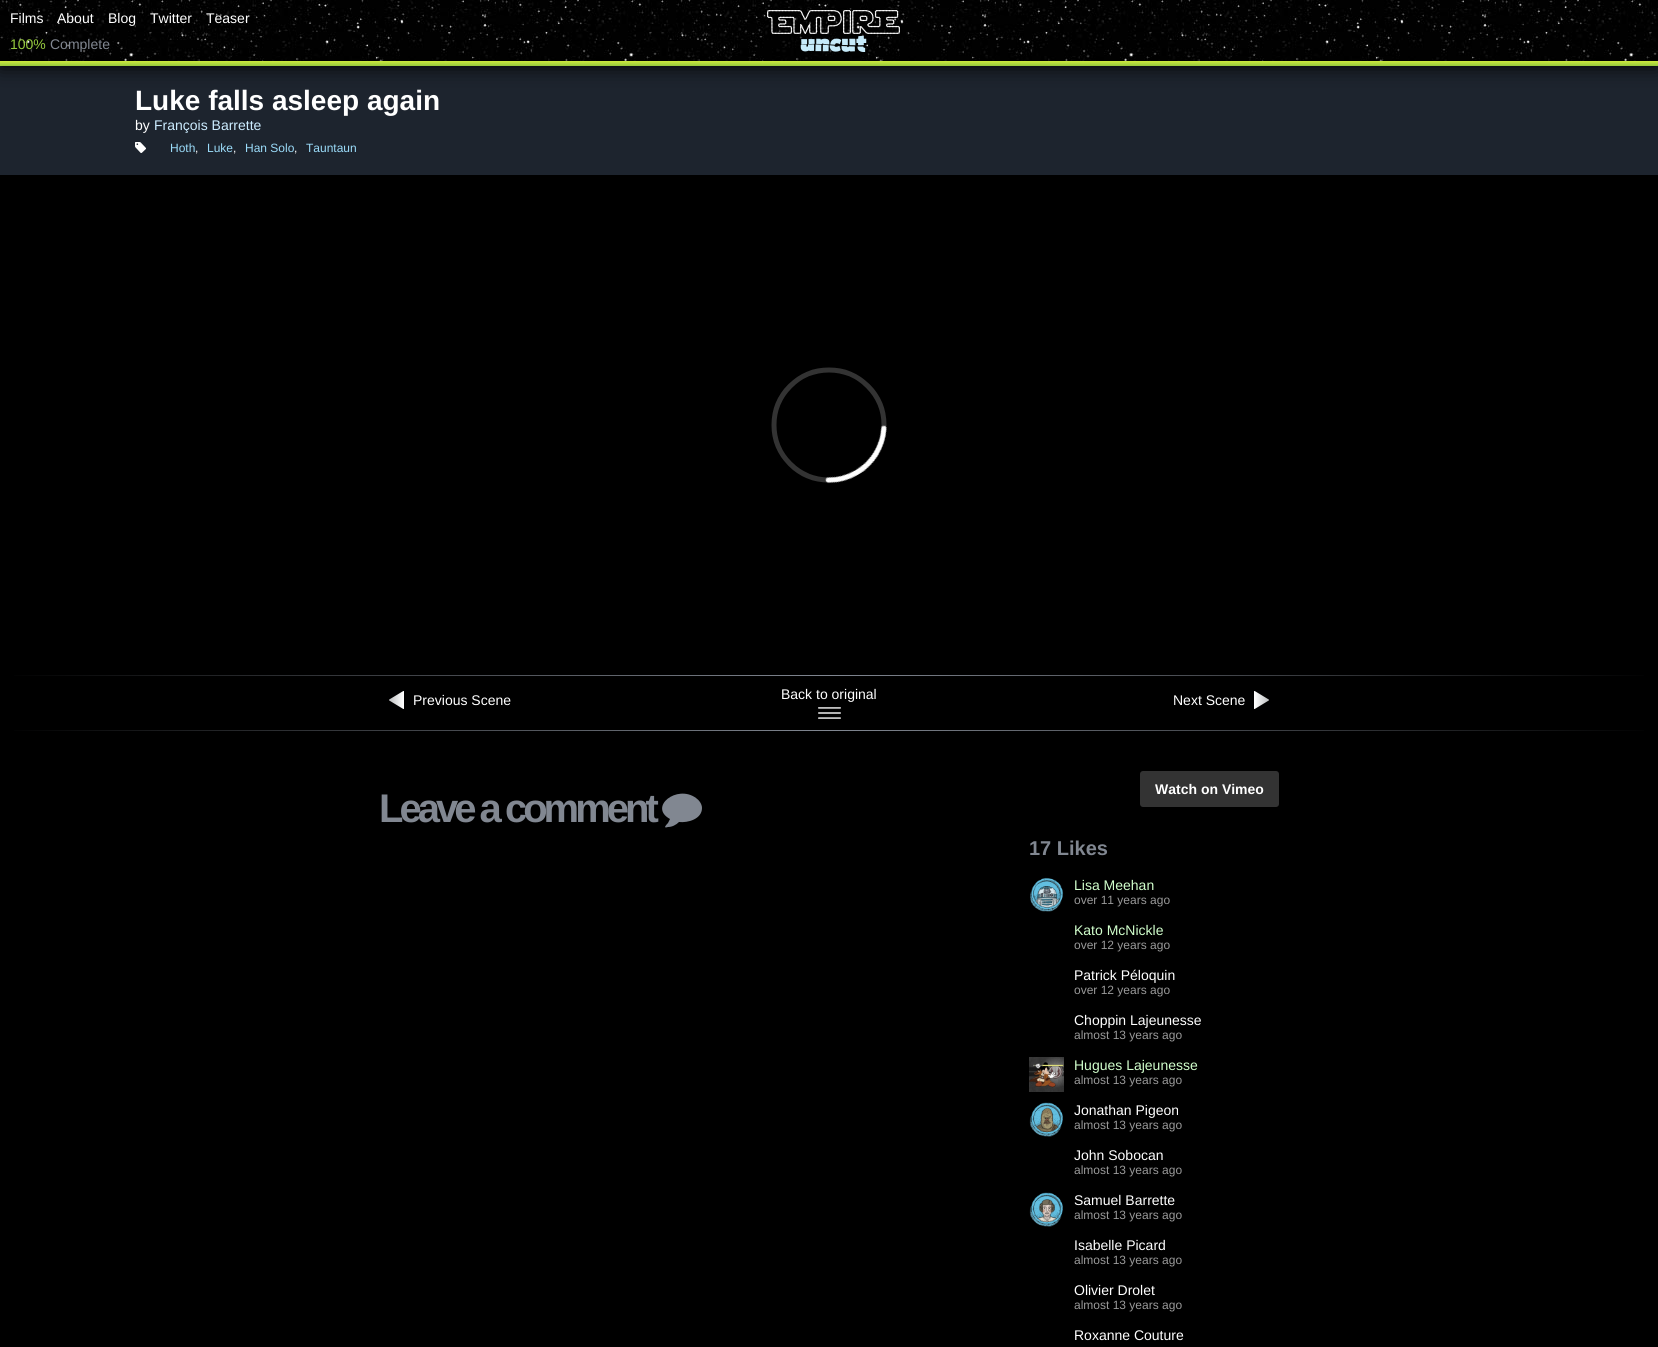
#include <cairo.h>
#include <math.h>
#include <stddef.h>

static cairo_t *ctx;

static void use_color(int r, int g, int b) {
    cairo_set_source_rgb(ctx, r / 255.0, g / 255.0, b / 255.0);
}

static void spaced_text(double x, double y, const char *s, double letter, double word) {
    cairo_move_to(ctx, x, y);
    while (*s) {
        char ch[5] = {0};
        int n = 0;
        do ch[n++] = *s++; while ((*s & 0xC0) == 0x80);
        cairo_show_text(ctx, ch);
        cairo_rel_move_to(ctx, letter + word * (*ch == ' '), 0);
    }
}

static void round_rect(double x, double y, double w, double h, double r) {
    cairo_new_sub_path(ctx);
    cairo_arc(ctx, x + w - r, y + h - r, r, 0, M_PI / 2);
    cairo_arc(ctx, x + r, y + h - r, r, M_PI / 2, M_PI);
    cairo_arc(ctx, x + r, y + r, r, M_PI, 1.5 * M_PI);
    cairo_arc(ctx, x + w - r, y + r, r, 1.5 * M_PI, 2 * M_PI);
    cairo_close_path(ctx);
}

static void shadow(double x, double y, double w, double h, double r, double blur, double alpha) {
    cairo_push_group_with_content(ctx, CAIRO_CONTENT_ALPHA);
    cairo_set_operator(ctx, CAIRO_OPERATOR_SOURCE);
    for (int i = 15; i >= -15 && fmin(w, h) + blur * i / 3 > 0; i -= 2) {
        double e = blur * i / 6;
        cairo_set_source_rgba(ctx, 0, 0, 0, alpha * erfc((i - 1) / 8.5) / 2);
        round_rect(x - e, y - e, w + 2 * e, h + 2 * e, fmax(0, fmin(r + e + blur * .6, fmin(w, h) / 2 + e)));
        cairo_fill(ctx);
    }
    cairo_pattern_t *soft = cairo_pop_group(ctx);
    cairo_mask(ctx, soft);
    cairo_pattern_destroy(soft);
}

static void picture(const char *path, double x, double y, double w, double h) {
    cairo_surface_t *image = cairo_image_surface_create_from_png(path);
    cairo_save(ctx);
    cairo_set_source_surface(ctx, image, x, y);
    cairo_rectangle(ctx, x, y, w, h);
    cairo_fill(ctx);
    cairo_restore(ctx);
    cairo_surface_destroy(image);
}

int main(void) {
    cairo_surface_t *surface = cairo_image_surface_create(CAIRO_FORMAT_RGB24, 1658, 1347);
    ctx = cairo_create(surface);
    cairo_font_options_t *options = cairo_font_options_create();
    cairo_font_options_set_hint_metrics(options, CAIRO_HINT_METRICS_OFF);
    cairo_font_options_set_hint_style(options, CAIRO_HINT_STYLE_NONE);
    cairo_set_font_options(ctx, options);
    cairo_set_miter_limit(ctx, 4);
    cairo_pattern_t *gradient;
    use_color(0, 0, 0);
    cairo_paint(ctx);
    use_color(29, 36, 46);
    cairo_rectangle(ctx, 0, 66, 1658, 109);
    cairo_fill(ctx);
    use_color(0, 0, 0);
    shadow(0, 0, 1658, 66, 0, 10, 1);
    picture("img1.png", 0, 0, 1658, 61);
    cairo_select_font_face(ctx, "Liberation Sans", CAIRO_FONT_SLANT_NORMAL, CAIRO_FONT_WEIGHT_NORMAL);
    cairo_set_font_size(ctx, 14);
    use_color(255, 255, 255);
    cairo_move_to(ctx, 10, 23);
    cairo_show_text(ctx, "Films");
    cairo_move_to(ctx, 57, 23);
    cairo_show_text(ctx, "About");
    cairo_move_to(ctx, 108, 23);
    cairo_show_text(ctx, "Blog");
    cairo_move_to(ctx, 150, 23);
    cairo_show_text(ctx, "Twitter");
    cairo_move_to(ctx, 206, 23);
    cairo_show_text(ctx, "Teaser");
    picture("img2.png", 767, 10, 133, 42);
    use_color(149, 201, 61);
    cairo_move_to(ctx, 10, 49);
    cairo_show_text(ctx, "100%");
    use_color(129, 135, 145);
    cairo_move_to(ctx, 50, 49);
    cairo_show_text(ctx, "Complete");
    gradient = cairo_pattern_create_linear(829, 61, 829, 66);
    cairo_pattern_add_color_stop_rgba(gradient, 0, 0.808, 0.918, 0.239, 1);
    cairo_pattern_add_color_stop_rgba(gradient, 1, 0.584, 0.788, 0.239, 1);
    cairo_set_source(ctx, gradient);
    cairo_pattern_destroy(gradient);
    cairo_rectangle(ctx, 0, 61, 1658, 5);
    cairo_fill(ctx);
    cairo_select_font_face(ctx, "Liberation Sans", CAIRO_FONT_SLANT_NORMAL, CAIRO_FONT_WEIGHT_BOLD);
    cairo_set_font_size(ctx, 28);
    use_color(255, 255, 255);
    cairo_move_to(ctx, 135, 110);
    cairo_show_text(ctx, "Luke falls asleep again");
    cairo_select_font_face(ctx, "Liberation Sans", CAIRO_FONT_SLANT_NORMAL, CAIRO_FONT_WEIGHT_NORMAL);
    cairo_set_font_size(ctx, 14);
    cairo_move_to(ctx, 135, 130);
    cairo_show_text(ctx, "by");
    use_color(204, 236, 255);
    cairo_move_to(ctx, 154, 130);
    cairo_show_text(ctx, "François Barrette");
    picture("img3.png", 135, 142, 11, 11);
    cairo_set_font_size(ctx, 12);
    use_color(154, 219, 249);
    cairo_move_to(ctx, 170, 152);
    cairo_show_text(ctx, "Hoth");
    use_color(255, 255, 255);
    cairo_move_to(ctx, 195, 152);
    cairo_show_text(ctx, ",");
    use_color(154, 219, 249);
    cairo_move_to(ctx, 207, 152);
    cairo_show_text(ctx, "Luke");
    use_color(255, 255, 255);
    cairo_move_to(ctx, 233, 152);
    cairo_show_text(ctx, ",");
    use_color(154, 219, 249);
    cairo_move_to(ctx, 245, 152);
    cairo_show_text(ctx, "Han Solo");
    use_color(255, 255, 255);
    cairo_move_to(ctx, 294, 152);
    cairo_show_text(ctx, ",");
    use_color(154, 219, 249);
    cairo_move_to(ctx, 306, 152);
    cairo_show_text(ctx, "Tauntaun");
    picture("img4.png", 771, 367, 116, 117);
    gradient = cairo_pattern_create_linear(0, 676, 1658, 676);
    cairo_pattern_add_color_stop_rgba(gradient, 0, 0, 0, 0, 1);
    cairo_pattern_add_color_stop_rgba(gradient, 0.5, 0.506, 0.529, 0.569, 1);
    cairo_pattern_add_color_stop_rgba(gradient, 1, 0, 0, 0, 1);
    cairo_set_source(ctx, gradient);
    cairo_pattern_destroy(gradient);
    cairo_rectangle(ctx, 14, 675, 1630, 1);
    cairo_fill(ctx);
    picture("img5.png", 389, 691, 15, 18);
    cairo_set_font_size(ctx, 14);
    use_color(255, 255, 255);
    cairo_move_to(ctx, 413, 705);
    cairo_show_text(ctx, "Previous Scene");
    picture("img6.png", 818, 707, 23, 12);
    cairo_move_to(ctx, 781, 699);
    cairo_show_text(ctx, "Back to original");
    cairo_move_to(ctx, 1173, 705);
    cairo_show_text(ctx, "Next Scene");
    picture("img7.png", 1254, 691, 15, 18);
    gradient = cairo_pattern_create_linear(0, 731, 1658, 731);
    cairo_pattern_add_color_stop_rgba(gradient, 0, 0, 0, 0, 1);
    cairo_pattern_add_color_stop_rgba(gradient, 0.5, 0.506, 0.529, 0.569, 1);
    cairo_pattern_add_color_stop_rgba(gradient, 1, 0, 0, 0, 1);
    cairo_set_source(ctx, gradient);
    cairo_pattern_destroy(gradient);
    cairo_rectangle(ctx, 14, 730, 1630, 1);
    cairo_fill(ctx);
    use_color(51, 51, 51);
    round_rect(1140, 771, 139, 36, 3);
    cairo_fill(ctx);
    cairo_select_font_face(ctx, "Liberation Sans", CAIRO_FONT_SLANT_NORMAL, CAIRO_FONT_WEIGHT_BOLD);
    use_color(255, 255, 255);
    cairo_move_to(ctx, 1155, 794);
    cairo_show_text(ctx, "Watch on Vimeo");
    cairo_set_font_size(ctx, 40);
    use_color(129, 135, 145);
    spaced_text(379, 822, "Leave a comment", -4, 0);
    cairo_new_path(ctx);
    cairo_move_to(ctx, 702, 808);
    cairo_curve_to(ctx, 702, 804, 699, 800, 696, 798);
    cairo_curve_to(ctx, 677, 784, 648, 807, 670, 819);
    cairo_line_to(ctx, 668, 823);
    cairo_curve_to(ctx, 667, 824, 662, 829, 668, 827);
    cairo_curve_to(ctx, 672, 827, 676, 825, 679, 822);
    cairo_curve_to(ctx, 688, 823, 702, 819, 702, 808);
    cairo_close_path(ctx);
    cairo_fill(ctx);
    cairo_set_font_size(ctx, 20);
    cairo_move_to(ctx, 1029, 855);
    cairo_show_text(ctx, "17 Likes");
    picture("img8.png", 1030, 877, 34, 35);
    cairo_select_font_face(ctx, "Liberation Sans", CAIRO_FONT_SLANT_NORMAL, CAIRO_FONT_WEIGHT_NORMAL);
    cairo_set_font_size(ctx, 14);
    use_color(209, 255, 204);
    cairo_move_to(ctx, 1074, 890);
    cairo_show_text(ctx, "Lisa Meehan");
    cairo_set_font_size(ctx, 12);
    use_color(153, 153, 153);
    cairo_move_to(ctx, 1074, 904);
    cairo_show_text(ctx, "over 11 years ago");
    cairo_set_font_size(ctx, 14);
    use_color(209, 255, 204);
    cairo_move_to(ctx, 1074, 935);
    cairo_show_text(ctx, "Kato McNickle");
    cairo_set_font_size(ctx, 12);
    use_color(153, 153, 153);
    cairo_move_to(ctx, 1074, 949);
    cairo_show_text(ctx, "over 12 years ago");
    cairo_set_font_size(ctx, 14);
    use_color(255, 255, 255);
    cairo_move_to(ctx, 1074, 980);
    cairo_show_text(ctx, "Patrick Péloquin");
    cairo_set_font_size(ctx, 12);
    use_color(153, 153, 153);
    cairo_move_to(ctx, 1074, 994);
    cairo_show_text(ctx, "over 12 years ago");
    cairo_set_font_size(ctx, 14);
    use_color(255, 255, 255);
    cairo_move_to(ctx, 1074, 1025);
    cairo_show_text(ctx, "Choppin Lajeunesse");
    cairo_set_font_size(ctx, 12);
    use_color(153, 153, 153);
    cairo_move_to(ctx, 1074, 1039);
    cairo_show_text(ctx, "almost 13 years ago");
    picture("img9.png", 1029, 1057, 35, 35);
    cairo_set_font_size(ctx, 14);
    use_color(209, 255, 204);
    cairo_move_to(ctx, 1074, 1070);
    cairo_show_text(ctx, "Hugues Lajeunesse");
    cairo_set_font_size(ctx, 12);
    use_color(153, 153, 153);
    cairo_move_to(ctx, 1074, 1084);
    cairo_show_text(ctx, "almost 13 years ago");
    picture("img10.png", 1029, 1102, 34, 35);
    cairo_set_font_size(ctx, 14);
    use_color(255, 255, 255);
    cairo_move_to(ctx, 1074, 1115);
    cairo_show_text(ctx, "Jonathan Pigeon");
    cairo_set_font_size(ctx, 12);
    use_color(153, 153, 153);
    cairo_move_to(ctx, 1074, 1129);
    cairo_show_text(ctx, "almost 13 years ago");
    cairo_set_font_size(ctx, 14);
    use_color(255, 255, 255);
    cairo_move_to(ctx, 1074, 1160);
    cairo_show_text(ctx, "John Sobocan");
    cairo_set_font_size(ctx, 12);
    use_color(153, 153, 153);
    cairo_move_to(ctx, 1074, 1174);
    cairo_show_text(ctx, "almost 13 years ago");
    picture("img11.png", 1029, 1192, 34, 35);
    cairo_set_font_size(ctx, 14);
    use_color(255, 255, 255);
    cairo_move_to(ctx, 1074, 1205);
    cairo_show_text(ctx, "Samuel Barrette");
    cairo_set_font_size(ctx, 12);
    use_color(153, 153, 153);
    cairo_move_to(ctx, 1074, 1219);
    cairo_show_text(ctx, "almost 13 years ago");
    cairo_set_font_size(ctx, 14);
    use_color(255, 255, 255);
    cairo_move_to(ctx, 1074, 1250);
    cairo_show_text(ctx, "Isabelle Picard");
    cairo_set_font_size(ctx, 12);
    use_color(153, 153, 153);
    cairo_move_to(ctx, 1074, 1264);
    cairo_show_text(ctx, "almost 13 years ago");
    cairo_set_font_size(ctx, 14);
    use_color(255, 255, 255);
    cairo_move_to(ctx, 1074, 1295);
    cairo_show_text(ctx, "Olivier Drolet");
    cairo_set_font_size(ctx, 12);
    use_color(153, 153, 153);
    cairo_move_to(ctx, 1074, 1309);
    cairo_show_text(ctx, "almost 13 years ago");
    cairo_set_font_size(ctx, 14);
    use_color(255, 255, 255);
    cairo_move_to(ctx, 1074, 1340);
    cairo_show_text(ctx, "Roxanne Couture");
    cairo_surface_write_to_png(surface, "result.png");
    cairo_font_options_destroy(options);
    cairo_destroy(ctx);
    cairo_surface_destroy(surface);
    return 0;
}
